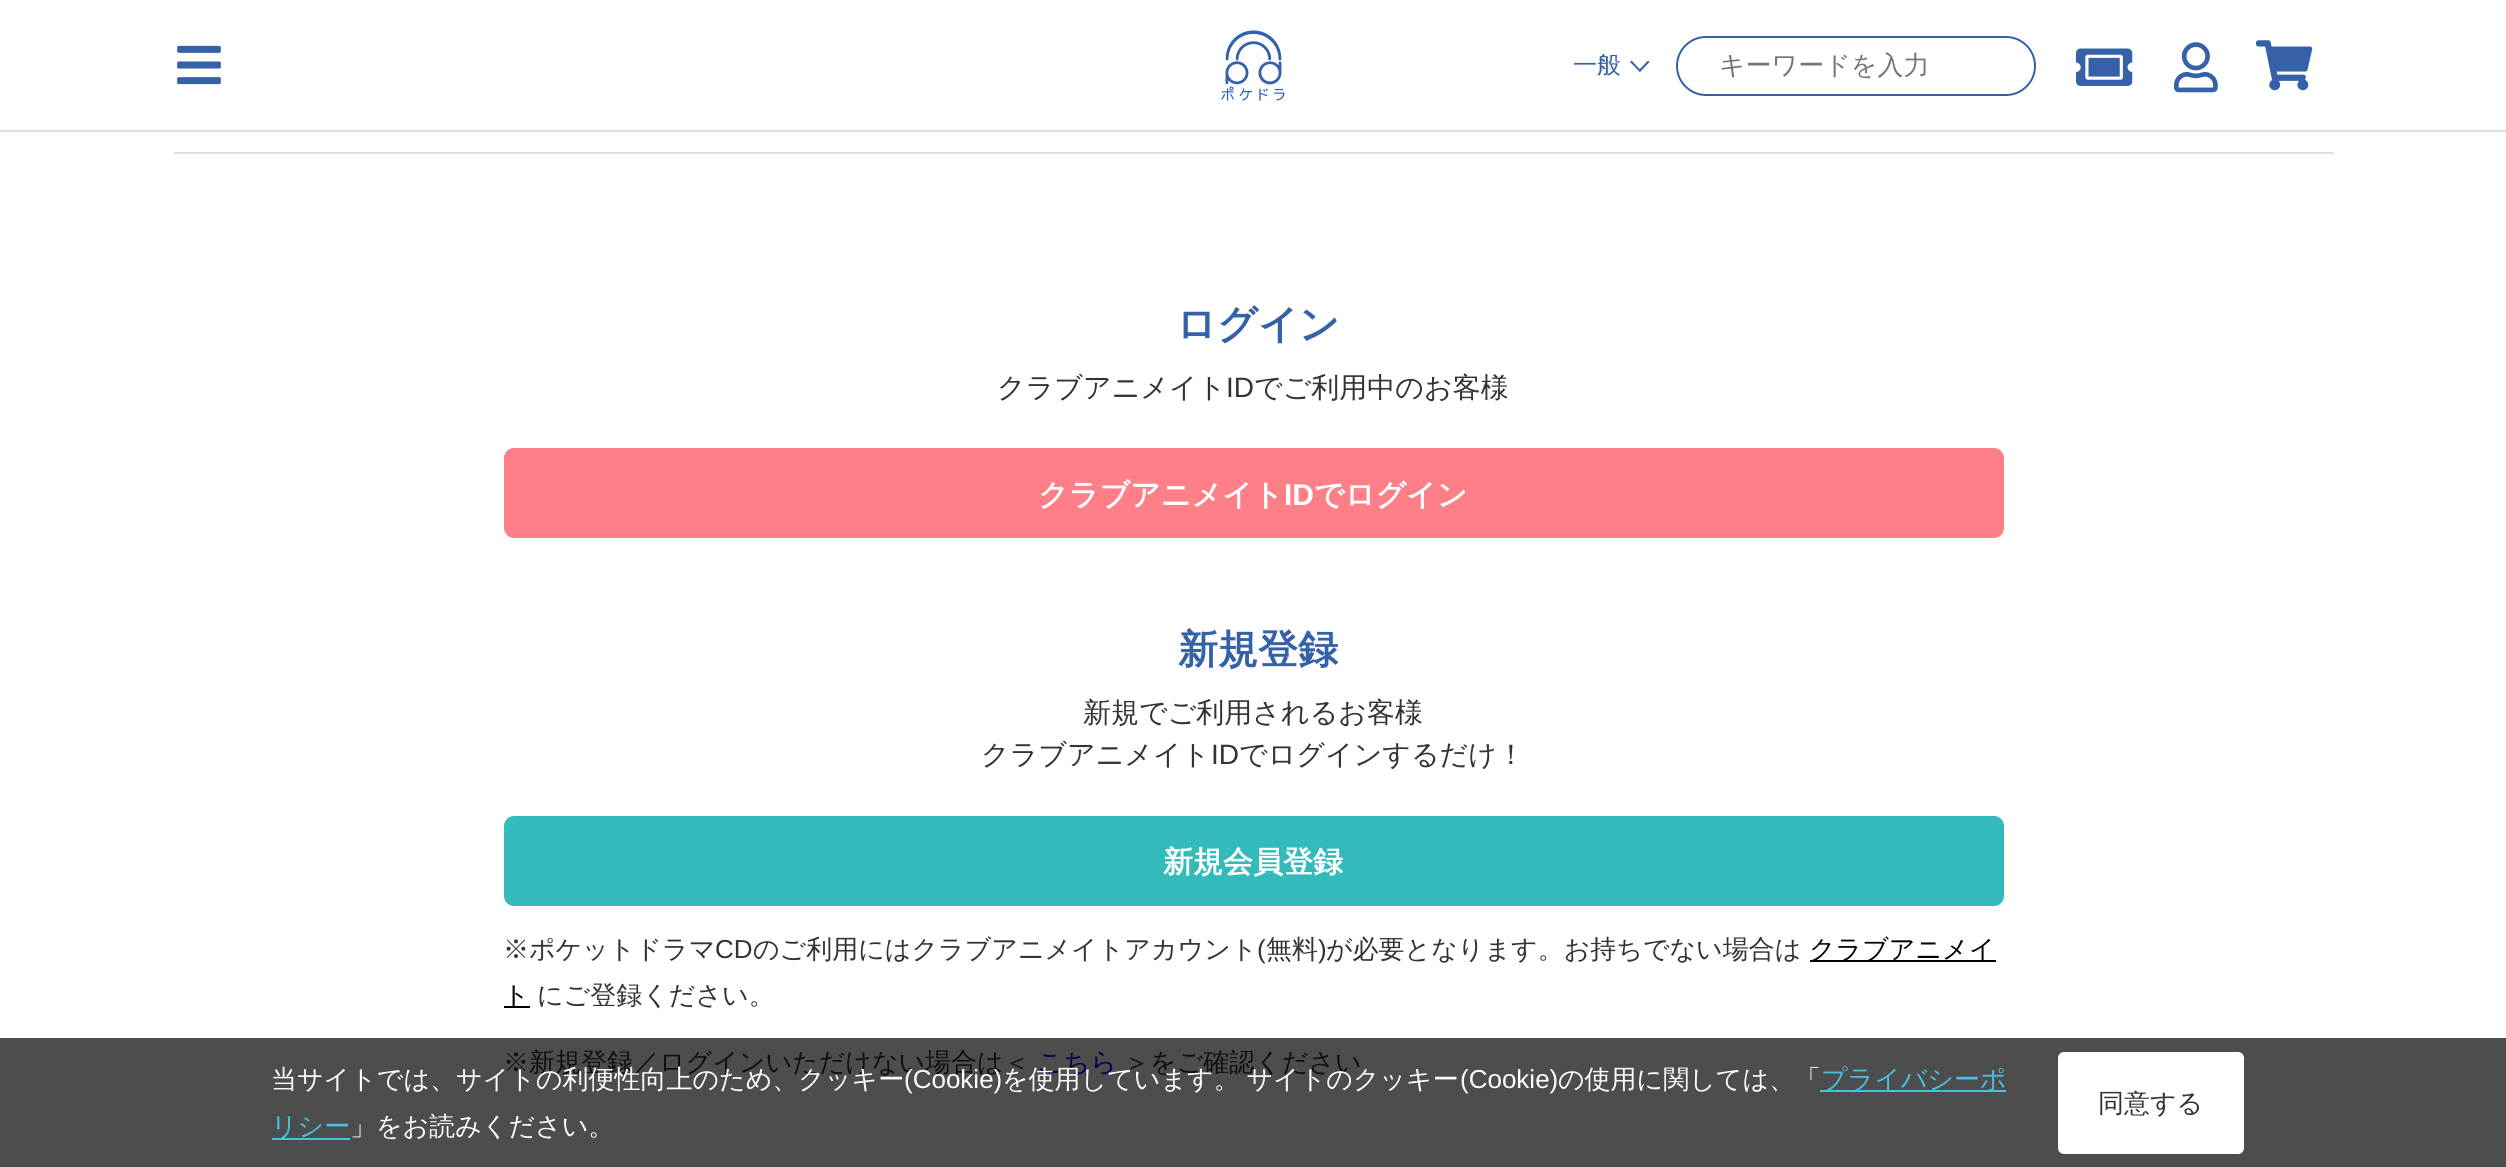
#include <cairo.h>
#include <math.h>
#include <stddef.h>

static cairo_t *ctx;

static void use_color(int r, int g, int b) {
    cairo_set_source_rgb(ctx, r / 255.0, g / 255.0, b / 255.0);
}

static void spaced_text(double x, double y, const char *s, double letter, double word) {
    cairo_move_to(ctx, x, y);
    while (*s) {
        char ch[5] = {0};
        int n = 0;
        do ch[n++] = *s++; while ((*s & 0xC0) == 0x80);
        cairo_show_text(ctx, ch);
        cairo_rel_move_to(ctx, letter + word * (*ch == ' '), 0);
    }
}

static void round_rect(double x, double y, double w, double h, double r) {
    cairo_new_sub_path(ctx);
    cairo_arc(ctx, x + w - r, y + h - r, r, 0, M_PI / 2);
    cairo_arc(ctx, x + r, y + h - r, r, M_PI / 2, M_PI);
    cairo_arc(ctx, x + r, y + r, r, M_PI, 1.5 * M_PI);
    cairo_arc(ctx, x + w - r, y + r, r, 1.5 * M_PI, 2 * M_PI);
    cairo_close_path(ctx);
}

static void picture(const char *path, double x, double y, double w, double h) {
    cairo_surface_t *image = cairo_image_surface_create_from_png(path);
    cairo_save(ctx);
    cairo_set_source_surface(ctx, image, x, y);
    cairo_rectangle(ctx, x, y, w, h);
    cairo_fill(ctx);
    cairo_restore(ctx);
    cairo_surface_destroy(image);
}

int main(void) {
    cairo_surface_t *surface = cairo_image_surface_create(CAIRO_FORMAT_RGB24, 2506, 1167);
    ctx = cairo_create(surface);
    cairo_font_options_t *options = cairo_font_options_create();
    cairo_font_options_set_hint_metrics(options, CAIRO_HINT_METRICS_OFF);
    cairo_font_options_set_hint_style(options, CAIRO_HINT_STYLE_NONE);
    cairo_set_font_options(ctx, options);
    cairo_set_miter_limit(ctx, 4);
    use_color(255, 255, 255);
    cairo_paint(ctx);
    use_color(77, 77, 77);
    cairo_rectangle(ctx, 0, 1038, 2506, 129);
    cairo_fill(ctx);
    use_color(222, 222, 222);
    cairo_rectangle(ctx, 0, 130, 2506, 2);
    cairo_fill(ctx);
    picture("img1.png", 177, 45, 44, 40);
    picture("img2.png", 1221, 30, 64, 71);
    cairo_select_font_face(ctx, "WenQuanYi Zen Hei Medium", CAIRO_FONT_SLANT_NORMAL, CAIRO_FONT_WEIGHT_NORMAL);
    cairo_set_font_size(ctx, 24);
    use_color(53, 97, 169);
    cairo_move_to(ctx, 1573, 73);
    cairo_show_text(ctx, "一般");
    cairo_new_path(ctx);
    cairo_move_to(ctx, 1649.5, 62);
    cairo_line_to(ctx, 1640, 72);
    cairo_line_to(ctx, 1638.5, 70.5);
    cairo_line_to(ctx, 1648, 60.5);
    cairo_close_path(ctx);
    cairo_fill(ctx);
    cairo_new_path(ctx);
    cairo_move_to(ctx, 1641, 70.5);
    cairo_line_to(ctx, 1640, 72);
    cairo_line_to(ctx, 1630, 62);
    cairo_line_to(ctx, 1631.5, 60.5);
    cairo_close_path(ctx);
    cairo_fill(ctx);
    round_rect(1677, 37, 358, 58, 29);
    cairo_stroke(ctx);
    cairo_set_font_size(ctx, 26);
    use_color(117, 117, 117);
    cairo_move_to(ctx, 1719, 74);
    cairo_show_text(ctx, "キーワードを入力");
    picture("img3.png", 2076, 48, 57, 38);
    picture("img4.png", 2174, 42, 44, 51);
    picture("img5.png", 2256, 40, 57, 51);
    use_color(222, 222, 222);
    cairo_rectangle(ctx, 174, 152, 2160, 2);
    cairo_fill(ctx);
    cairo_select_font_face(ctx, "WenQuanYi Zen Hei", CAIRO_FONT_SLANT_NORMAL, CAIRO_FONT_WEIGHT_BOLD);
    cairo_set_font_size(ctx, 40);
    use_color(53, 97, 169);
    cairo_move_to(ctx, 1176, 338);
    cairo_show_text(ctx, "ログイン");
    cairo_select_font_face(ctx, "WenQuanYi Zen Hei Medium", CAIRO_FONT_SLANT_NORMAL, CAIRO_FONT_WEIGHT_NORMAL);
    cairo_set_font_size(ctx, 28);
    use_color(51, 51, 51);
    cairo_move_to(ctx, 997, 397);
    cairo_show_text(ctx, "クラブアニメイト");
    cairo_select_font_face(ctx, "Liberation Sans", CAIRO_FONT_SLANT_NORMAL, CAIRO_FONT_WEIGHT_NORMAL);
    cairo_move_to(ctx, 1226, 397);
    cairo_show_text(ctx, "ID");
    cairo_select_font_face(ctx, "WenQuanYi Zen Hei Medium", CAIRO_FONT_SLANT_NORMAL, CAIRO_FONT_WEIGHT_NORMAL);
    cairo_move_to(ctx, 1254, 397);
    cairo_show_text(ctx, "でご利用中のお客様");
    use_color(255, 127, 136);
    round_rect(504, 448, 1500, 90, 10);
    cairo_fill(ctx);
    cairo_select_font_face(ctx, "WenQuanYi Zen Hei", CAIRO_FONT_SLANT_NORMAL, CAIRO_FONT_WEIGHT_BOLD);
    cairo_set_font_size(ctx, 30);
    use_color(255, 255, 255);
    cairo_move_to(ctx, 1038, 505);
    cairo_show_text(ctx, "クラブアニメイト");
    cairo_select_font_face(ctx, "Liberation Sans", CAIRO_FONT_SLANT_NORMAL, CAIRO_FONT_WEIGHT_BOLD);
    cairo_move_to(ctx, 1284, 505);
    cairo_show_text(ctx, "ID");
    cairo_select_font_face(ctx, "WenQuanYi Zen Hei", CAIRO_FONT_SLANT_NORMAL, CAIRO_FONT_WEIGHT_BOLD);
    cairo_move_to(ctx, 1314, 505);
    cairo_show_text(ctx, "でログイン");
    cairo_set_font_size(ctx, 40);
    use_color(53, 97, 169);
    cairo_move_to(ctx, 1178, 663);
    cairo_show_text(ctx, "新規登録");
    cairo_select_font_face(ctx, "WenQuanYi Zen Hei Medium", CAIRO_FONT_SLANT_NORMAL, CAIRO_FONT_WEIGHT_NORMAL);
    cairo_set_font_size(ctx, 28);
    use_color(51, 51, 51);
    cairo_move_to(ctx, 1083, 722);
    cairo_show_text(ctx, "新規でご利用されるお客様");
    cairo_move_to(ctx, 981, 764);
    cairo_show_text(ctx, "クラブアニメイト");
    cairo_select_font_face(ctx, "Liberation Sans", CAIRO_FONT_SLANT_NORMAL, CAIRO_FONT_WEIGHT_NORMAL);
    cairo_move_to(ctx, 1211, 764);
    cairo_show_text(ctx, "ID");
    cairo_select_font_face(ctx, "WenQuanYi Zen Hei Medium", CAIRO_FONT_SLANT_NORMAL, CAIRO_FONT_WEIGHT_NORMAL);
    cairo_move_to(ctx, 1239, 764);
    cairo_show_text(ctx, "でログインするだけ！");
    use_color(51, 187, 187);
    round_rect(504, 816, 1500, 90, 10);
    cairo_fill(ctx);
    cairo_select_font_face(ctx, "WenQuanYi Zen Hei", CAIRO_FONT_SLANT_NORMAL, CAIRO_FONT_WEIGHT_BOLD);
    cairo_set_font_size(ctx, 30);
    use_color(255, 255, 255);
    cairo_move_to(ctx, 1163, 872);
    cairo_show_text(ctx, "新規会員登録");
    cairo_select_font_face(ctx, "WenQuanYi Zen Hei Medium", CAIRO_FONT_SLANT_NORMAL, CAIRO_FONT_WEIGHT_NORMAL);
    cairo_set_font_size(ctx, 26);
    use_color(51, 51, 51);
    cairo_move_to(ctx, 503, 958);
    cairo_show_text(ctx, "※ポケットドラマ");
    cairo_select_font_face(ctx, "Liberation Sans", CAIRO_FONT_SLANT_NORMAL, CAIRO_FONT_WEIGHT_NORMAL);
    cairo_move_to(ctx, 715, 958);
    cairo_show_text(ctx, "CD");
    cairo_select_font_face(ctx, "WenQuanYi Zen Hei Medium", CAIRO_FONT_SLANT_NORMAL, CAIRO_FONT_WEIGHT_NORMAL);
    cairo_move_to(ctx, 753, 958);
    cairo_show_text(ctx, "のご利用にはクラブアニメイトアカウント");
    cairo_select_font_face(ctx, "Liberation Sans", CAIRO_FONT_SLANT_NORMAL, CAIRO_FONT_WEIGHT_NORMAL);
    cairo_move_to(ctx, 1257, 958);
    cairo_show_text(ctx, "(");
    cairo_select_font_face(ctx, "WenQuanYi Zen Hei Medium", CAIRO_FONT_SLANT_NORMAL, CAIRO_FONT_WEIGHT_NORMAL);
    cairo_move_to(ctx, 1266, 958);
    cairo_show_text(ctx, "無料");
    cairo_select_font_face(ctx, "Liberation Sans", CAIRO_FONT_SLANT_NORMAL, CAIRO_FONT_WEIGHT_NORMAL);
    cairo_move_to(ctx, 1318, 958);
    cairo_show_text(ctx, ")");
    cairo_select_font_face(ctx, "WenQuanYi Zen Hei Medium", CAIRO_FONT_SLANT_NORMAL, CAIRO_FONT_WEIGHT_NORMAL);
    cairo_move_to(ctx, 1326, 958);
    cairo_show_text(ctx, "が必要となります。お持ちでない場合は");
    use_color(0, 0, 0);
    cairo_rectangle(ctx, 1810, 960, 186, 2);
    cairo_fill(ctx);
    cairo_move_to(ctx, 1809, 958);
    cairo_show_text(ctx, "クラブアニメイ");
    cairo_rectangle(ctx, 504, 1006, 26, 2);
    cairo_fill(ctx);
    cairo_move_to(ctx, 503, 1004);
    cairo_show_text(ctx, "ト");
    use_color(51, 51, 51);
    cairo_move_to(ctx, 537, 1004);
    cairo_show_text(ctx, "にご登録ください。");
    use_color(15, 15, 15);
    cairo_move_to(ctx, 503, 1071);
    cairo_show_text(ctx, "※新規登録／ログインいただけない場合は＜");
    use_color(0, 0, 77);
    cairo_move_to(ctx, 1037, 1071);
    cairo_show_text(ctx, "こちら");
    use_color(15, 15, 15);
    cairo_move_to(ctx, 1124, 1071);
    cairo_show_text(ctx, "＞をご確認ください");
    use_color(255, 255, 255);
    cairo_move_to(ctx, 271, 1088);
    cairo_show_text(ctx, "当サイトでは、サイトの利便性向上のため、クッキー");
    cairo_select_font_face(ctx, "Liberation Sans", CAIRO_FONT_SLANT_NORMAL, CAIRO_FONT_WEIGHT_NORMAL);
    cairo_move_to(ctx, 904, 1088);
    cairo_show_text(ctx, "(Cookie)");
    cairo_select_font_face(ctx, "WenQuanYi Zen Hei Medium", CAIRO_FONT_SLANT_NORMAL, CAIRO_FONT_WEIGHT_NORMAL);
    spaced_text(1002, 1088, "を使用しています。 サイトのクッキー", 0, -1);
    cairo_select_font_face(ctx, "Liberation Sans", CAIRO_FONT_SLANT_NORMAL, CAIRO_FONT_WEIGHT_NORMAL);
    cairo_move_to(ctx, 1460, 1088);
    cairo_show_text(ctx, "(Cookie)");
    cairo_select_font_face(ctx, "WenQuanYi Zen Hei Medium", CAIRO_FONT_SLANT_NORMAL, CAIRO_FONT_WEIGHT_NORMAL);
    cairo_move_to(ctx, 1558, 1088);
    cairo_show_text(ctx, "の使用に関しては、「");
    use_color(73, 191, 226);
    cairo_rectangle(ctx, 1820, 1090, 186, 2);
    cairo_fill(ctx);
    cairo_move_to(ctx, 1821, 1088);
    cairo_show_text(ctx, "プライバシーポ");
    cairo_rectangle(ctx, 272, 1138, 78, 2);
    cairo_fill(ctx);
    cairo_move_to(ctx, 271, 1135);
    cairo_show_text(ctx, "リシー");
    use_color(255, 255, 255);
    cairo_move_to(ctx, 350, 1135);
    cairo_show_text(ctx, "」をお読みください。");
    round_rect(2058, 1052, 186, 102, 6);
    cairo_fill(ctx);
    use_color(51, 51, 51);
    cairo_move_to(ctx, 2098, 1112);
    cairo_show_text(ctx, "同意する");
    cairo_surface_write_to_png(surface, "result.png");
    cairo_font_options_destroy(options);
    cairo_destroy(ctx);
    cairo_surface_destroy(surface);
    return 0;
}
